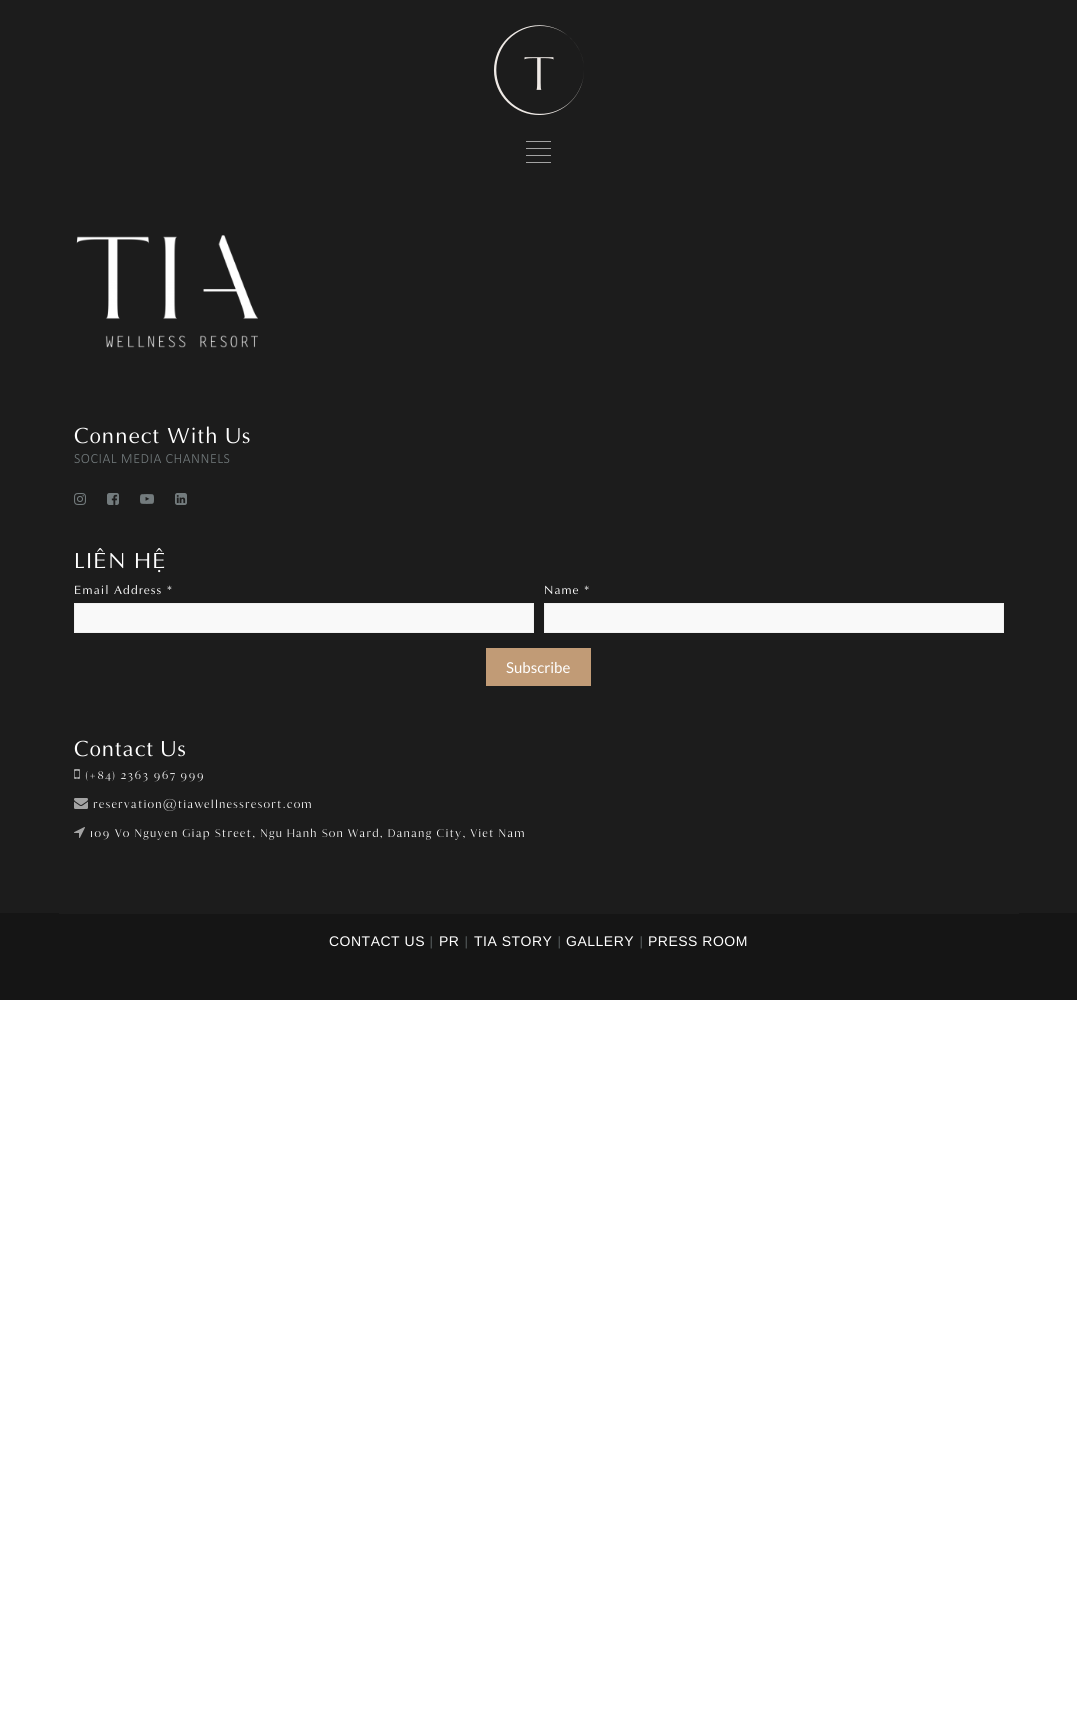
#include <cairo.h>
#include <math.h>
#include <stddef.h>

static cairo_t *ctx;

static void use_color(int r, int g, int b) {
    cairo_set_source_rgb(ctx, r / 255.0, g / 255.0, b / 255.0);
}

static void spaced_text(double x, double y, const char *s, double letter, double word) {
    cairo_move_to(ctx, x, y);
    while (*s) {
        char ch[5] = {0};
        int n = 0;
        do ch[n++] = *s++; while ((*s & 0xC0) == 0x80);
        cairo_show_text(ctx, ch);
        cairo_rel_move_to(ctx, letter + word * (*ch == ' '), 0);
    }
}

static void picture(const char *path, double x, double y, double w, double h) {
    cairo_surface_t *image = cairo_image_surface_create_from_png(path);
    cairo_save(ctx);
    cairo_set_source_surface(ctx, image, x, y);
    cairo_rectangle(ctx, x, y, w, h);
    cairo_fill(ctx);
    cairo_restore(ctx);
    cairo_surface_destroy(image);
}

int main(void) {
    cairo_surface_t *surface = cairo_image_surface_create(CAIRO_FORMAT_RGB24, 1077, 1727);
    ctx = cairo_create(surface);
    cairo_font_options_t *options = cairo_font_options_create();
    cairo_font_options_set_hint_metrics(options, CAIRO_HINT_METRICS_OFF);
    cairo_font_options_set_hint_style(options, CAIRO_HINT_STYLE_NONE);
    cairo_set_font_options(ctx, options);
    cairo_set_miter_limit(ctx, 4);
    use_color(255, 255, 255);
    cairo_paint(ctx);
    use_color(28, 28, 28);
    cairo_rectangle(ctx, 0, 0, 1077, 913);
    cairo_fill(ctx);
    picture("img1.png", 493, 25, 91, 90);
    use_color(163, 163, 163);
    cairo_rectangle(ctx, 526, 141, 25, 1);
    cairo_fill(ctx);
    cairo_rectangle(ctx, 526, 148, 25, 1);
    cairo_fill(ctx);
    cairo_rectangle(ctx, 526, 155, 25, 1);
    cairo_fill(ctx);
    cairo_rectangle(ctx, 526, 162, 25, 1);
    cairo_fill(ctx);
    picture("img2.png", 76, 235, 182, 113);
    cairo_select_font_face(ctx, "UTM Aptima", CAIRO_FONT_SLANT_NORMAL, CAIRO_FONT_WEIGHT_NORMAL);
    cairo_set_font_size(ctx, 22);
    use_color(255, 255, 255);
    spaced_text(74, 443, "Connect With Us", 1, 0);
    cairo_select_font_face(ctx, "Calibri Light", CAIRO_FONT_SLANT_NORMAL, CAIRO_FONT_WEIGHT_NORMAL);
    cairo_set_font_size(ctx, 14);
    use_color(115, 123, 125);
    spaced_text(74, 463, "SOCIAL MEDIA CHANNELS", 0.5, 0);
    picture("img3.png", 74, 493, 12, 12);
    picture("img4.png", 107, 493, 12, 12);
    picture("img5.png", 140, 494, 14, 10);
    picture("img6.png", 175, 493, 12, 12);
    cairo_select_font_face(ctx, "UTM Aptima", CAIRO_FONT_SLANT_NORMAL, CAIRO_FONT_WEIGHT_NORMAL);
    cairo_set_font_size(ctx, 22);
    use_color(255, 255, 255);
    spaced_text(74, 568, "LIÊN HỆ", 1, 0);
    cairo_set_font_size(ctx, 12);
    spaced_text(74, 594, "Email Address *", 1, 0);
    use_color(249, 249, 249);
    cairo_rectangle(ctx, 74.5, 603.5, 459, 29);
    cairo_fill_preserve(ctx);
    use_color(241, 241, 241);
    cairo_set_line_width(ctx, 1);
    cairo_stroke(ctx);
    use_color(255, 255, 255);
    spaced_text(544, 594, "Name *", 1, 0);
    use_color(249, 249, 249);
    cairo_rectangle(ctx, 544.5, 603.5, 459, 29);
    cairo_fill_preserve(ctx);
    use_color(241, 241, 241);
    cairo_stroke(ctx);
    use_color(193, 155, 118);
    cairo_rectangle(ctx, 486, 648, 105, 38);
    cairo_fill(ctx);
    cairo_select_font_face(ctx, "Lato", CAIRO_FONT_SLANT_NORMAL, CAIRO_FONT_WEIGHT_NORMAL);
    cairo_set_font_size(ctx, 15);
    use_color(255, 255, 255);
    cairo_move_to(ctx, 506, 673);
    cairo_show_text(ctx, "Subscribe");
    cairo_select_font_face(ctx, "UTM Aptima", CAIRO_FONT_SLANT_NORMAL, CAIRO_FONT_WEIGHT_NORMAL);
    cairo_set_font_size(ctx, 22);
    spaced_text(74, 756, "Contact Us", 1, 0);
    picture("img7.png", 74, 769, 6, 10);
    cairo_select_font_face(ctx, "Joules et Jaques", CAIRO_FONT_SLANT_NORMAL, CAIRO_FONT_WEIGHT_NORMAL);
    cairo_set_font_size(ctx, 12);
    spaced_text(85, 779, "(+84) 2363 967 999", 1, 0);
    picture("img8.png", 74, 798, 14, 11);
    spaced_text(93, 808, "reservation@tiawellnessresort.com", 1, 0);
    picture("img9.png", 74, 827, 11, 11);
    spaced_text(90, 837, "109 Vo Nguyen Giap Street, Ngu Hanh Son Ward, Danang City, Viet Nam", 1, 0);
    use_color(21, 21, 21);
    cairo_rectangle(ctx, 0, 913, 1077, 87);
    cairo_fill(ctx);
    use_color(28, 28, 28);
    cairo_rectangle(ctx, 59, 913, 960, 1);
    cairo_fill(ctx);
    cairo_select_font_face(ctx, "Liberation Sans", CAIRO_FONT_SLANT_NORMAL, CAIRO_FONT_WEIGHT_NORMAL);
    cairo_set_font_size(ctx, 14);
    use_color(255, 255, 255);
    spaced_text(329, 946, "CONTACT US", 0.5, 0);
    cairo_select_font_face(ctx, "Calibri Light", CAIRO_FONT_SLANT_NORMAL, CAIRO_FONT_WEIGHT_NORMAL);
    use_color(115, 123, 125);
    spaced_text(428, 946, "|", 0.5, 0);
    cairo_select_font_face(ctx, "Liberation Sans", CAIRO_FONT_SLANT_NORMAL, CAIRO_FONT_WEIGHT_NORMAL);
    use_color(255, 255, 255);
    spaced_text(439, 946, "PR", 0.5, 0);
    cairo_select_font_face(ctx, "Calibri Light", CAIRO_FONT_SLANT_NORMAL, CAIRO_FONT_WEIGHT_NORMAL);
    use_color(115, 123, 125);
    spaced_text(463, 946, "|", 0.5, 0);
    cairo_select_font_face(ctx, "Liberation Sans", CAIRO_FONT_SLANT_NORMAL, CAIRO_FONT_WEIGHT_NORMAL);
    use_color(255, 255, 255);
    spaced_text(474, 946, "TIA STORY", 0.5, 0);
    cairo_select_font_face(ctx, "Calibri Light", CAIRO_FONT_SLANT_NORMAL, CAIRO_FONT_WEIGHT_NORMAL);
    use_color(115, 123, 125);
    spaced_text(556, 946, "|", 0.5, 0);
    cairo_select_font_face(ctx, "Liberation Sans", CAIRO_FONT_SLANT_NORMAL, CAIRO_FONT_WEIGHT_NORMAL);
    use_color(255, 255, 255);
    spaced_text(566, 946, "GALLERY", 0.5, 0);
    cairo_select_font_face(ctx, "Calibri Light", CAIRO_FONT_SLANT_NORMAL, CAIRO_FONT_WEIGHT_NORMAL);
    use_color(115, 123, 125);
    spaced_text(638, 946, "|", 0.5, 0);
    cairo_select_font_face(ctx, "Liberation Sans", CAIRO_FONT_SLANT_NORMAL, CAIRO_FONT_WEIGHT_NORMAL);
    use_color(255, 255, 255);
    spaced_text(648, 946, "PRESS ROOM", 0.5, 0);
    cairo_surface_write_to_png(surface, "result.png");
    cairo_font_options_destroy(options);
    cairo_destroy(ctx);
    cairo_surface_destroy(surface);
    return 0;
}
